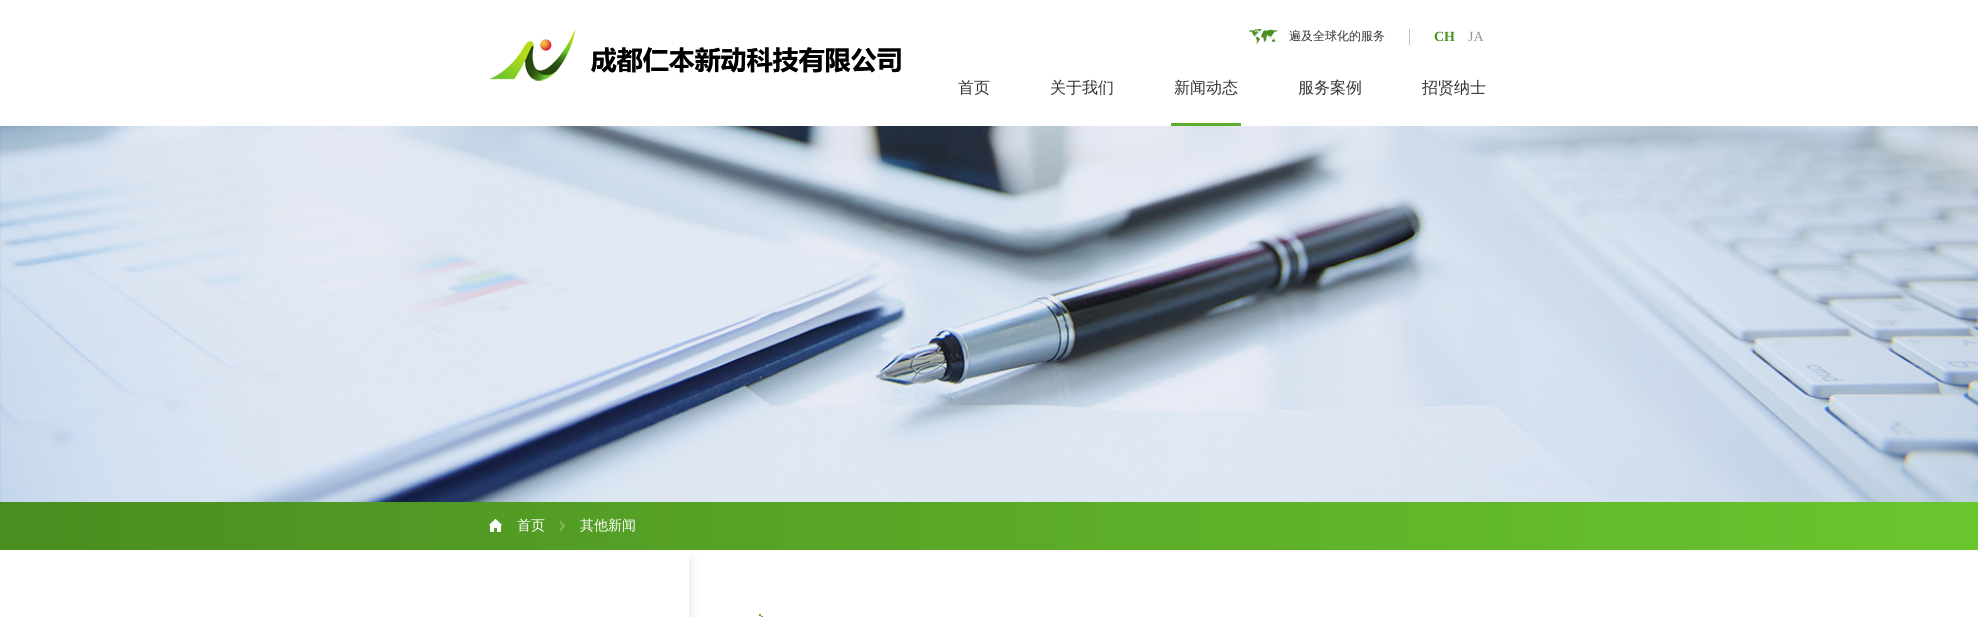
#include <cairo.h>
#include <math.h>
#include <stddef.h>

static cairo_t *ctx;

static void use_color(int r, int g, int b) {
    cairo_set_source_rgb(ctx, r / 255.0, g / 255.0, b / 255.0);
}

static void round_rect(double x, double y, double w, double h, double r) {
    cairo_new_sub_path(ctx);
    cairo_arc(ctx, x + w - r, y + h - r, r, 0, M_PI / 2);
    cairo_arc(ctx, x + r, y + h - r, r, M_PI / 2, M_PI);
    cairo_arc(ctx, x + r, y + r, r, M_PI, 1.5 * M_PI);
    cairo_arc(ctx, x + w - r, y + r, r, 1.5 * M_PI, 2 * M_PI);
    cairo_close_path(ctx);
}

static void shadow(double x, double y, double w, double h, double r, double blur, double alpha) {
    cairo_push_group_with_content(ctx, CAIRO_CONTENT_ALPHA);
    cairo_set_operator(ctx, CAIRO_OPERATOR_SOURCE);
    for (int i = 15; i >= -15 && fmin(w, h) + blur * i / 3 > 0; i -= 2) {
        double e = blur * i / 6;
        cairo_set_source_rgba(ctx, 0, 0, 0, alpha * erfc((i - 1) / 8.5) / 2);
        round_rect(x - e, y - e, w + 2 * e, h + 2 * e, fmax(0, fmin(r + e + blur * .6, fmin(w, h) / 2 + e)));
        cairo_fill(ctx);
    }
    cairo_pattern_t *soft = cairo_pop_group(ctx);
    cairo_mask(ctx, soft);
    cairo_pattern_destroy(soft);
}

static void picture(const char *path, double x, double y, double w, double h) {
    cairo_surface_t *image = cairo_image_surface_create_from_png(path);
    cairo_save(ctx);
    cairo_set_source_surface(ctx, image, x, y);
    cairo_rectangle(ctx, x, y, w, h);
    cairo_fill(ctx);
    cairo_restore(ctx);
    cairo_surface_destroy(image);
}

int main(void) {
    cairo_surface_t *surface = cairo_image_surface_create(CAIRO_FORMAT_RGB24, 1978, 617);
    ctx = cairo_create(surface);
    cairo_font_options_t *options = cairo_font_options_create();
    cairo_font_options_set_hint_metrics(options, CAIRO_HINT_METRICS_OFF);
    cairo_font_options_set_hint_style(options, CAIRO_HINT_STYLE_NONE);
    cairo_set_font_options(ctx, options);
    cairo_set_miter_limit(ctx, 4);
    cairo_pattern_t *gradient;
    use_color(255, 255, 255);
    cairo_paint(ctx);
    picture("img1.png", 489, 29, 412, 52);
    picture("img2.png", 1249, 29, 29, 15);
    cairo_select_font_face(ctx, "WenQuanYi Zen Hei Medium", CAIRO_FONT_SLANT_NORMAL, CAIRO_FONT_WEIGHT_NORMAL);
    cairo_set_font_size(ctx, 12);
    use_color(51, 51, 51);
    cairo_move_to(ctx, 1289, 40);
    cairo_show_text(ctx, "遍及全球化的服务");
    use_color(191, 191, 191);
    cairo_rectangle(ctx, 1409, 29, 1, 16);
    cairo_fill(ctx);
    cairo_select_font_face(ctx, "Liberation Serif", CAIRO_FONT_SLANT_NORMAL, CAIRO_FONT_WEIGHT_BOLD);
    cairo_set_font_size(ctx, 14);
    use_color(74, 143, 31);
    cairo_move_to(ctx, 1434, 41);
    cairo_show_text(ctx, "CH");
    cairo_select_font_face(ctx, "Liberation Serif", CAIRO_FONT_SLANT_NORMAL, CAIRO_FONT_WEIGHT_NORMAL);
    use_color(146, 146, 146);
    cairo_move_to(ctx, 1468, 41);
    cairo_show_text(ctx, "JA");
    cairo_select_font_face(ctx, "WenQuanYi Zen Hei Medium", CAIRO_FONT_SLANT_NORMAL, CAIRO_FONT_WEIGHT_NORMAL);
    cairo_set_font_size(ctx, 16);
    use_color(51, 51, 51);
    cairo_move_to(ctx, 958, 93);
    cairo_show_text(ctx, "首页");
    cairo_move_to(ctx, 1050, 93);
    cairo_show_text(ctx, "关于我们");
    use_color(91, 175, 43);
    cairo_rectangle(ctx, 1171, 123, 70, 3);
    cairo_fill(ctx);
    use_color(51, 51, 51);
    cairo_move_to(ctx, 1174, 93);
    cairo_show_text(ctx, "新闻动态");
    cairo_move_to(ctx, 1298, 93);
    cairo_show_text(ctx, "服务案例");
    cairo_move_to(ctx, 1422, 93);
    cairo_show_text(ctx, "招贤纳士");
    picture("img3.png", 0, 126, 1978, 376);
    cairo_save(ctx);
    cairo_rectangle(ctx, 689, 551, 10, 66);
    cairo_clip(ctx);
    use_color(221, 221, 221);
    shadow(509, 560, 180, 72, 0, 5, 1);
    cairo_restore(ctx);
    gradient = cairo_pattern_create_linear(0, 526, 1978, 526);
    cairo_pattern_add_color_stop_rgba(gradient, 0, 0.29, 0.553, 0.129, 1);
    cairo_pattern_add_color_stop_rgba(gradient, 1, 0.416, 0.776, 0.18, 1);
    cairo_set_source(ctx, gradient);
    cairo_pattern_destroy(gradient);
    cairo_rectangle(ctx, 0, 502, 1978, 48);
    cairo_fill(ctx);
    picture("img4.png", 489, 519, 13, 13);
    cairo_set_font_size(ctx, 14);
    use_color(255, 255, 255);
    cairo_move_to(ctx, 517, 530);
    cairo_show_text(ctx, "首页");
    picture("img5.png", 560, 521, 5, 10);
    cairo_move_to(ctx, 580, 530);
    cairo_show_text(ctx, "其他新闻");
    picture("img6.png", 759, 614, 4, 3);
    cairo_surface_write_to_png(surface, "result.png");
    cairo_font_options_destroy(options);
    cairo_destroy(ctx);
    cairo_surface_destroy(surface);
    return 0;
}
